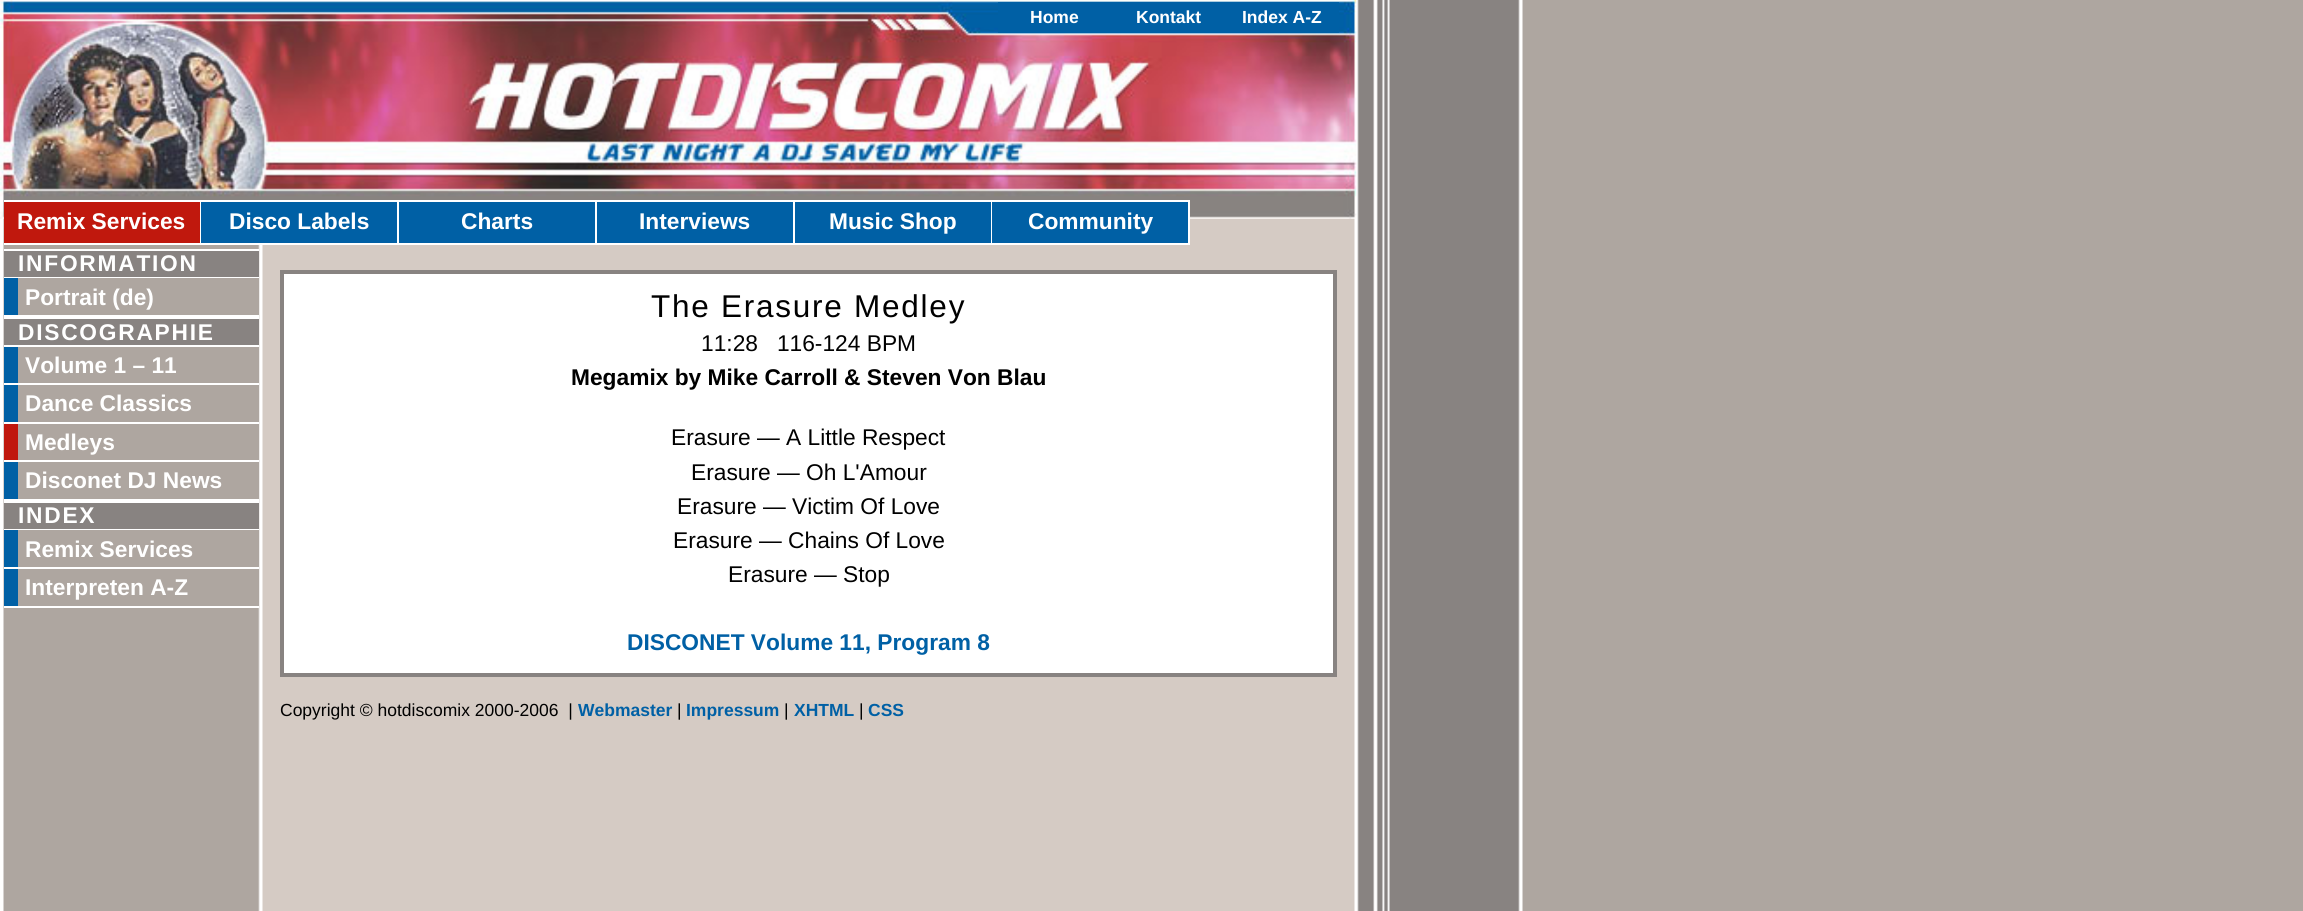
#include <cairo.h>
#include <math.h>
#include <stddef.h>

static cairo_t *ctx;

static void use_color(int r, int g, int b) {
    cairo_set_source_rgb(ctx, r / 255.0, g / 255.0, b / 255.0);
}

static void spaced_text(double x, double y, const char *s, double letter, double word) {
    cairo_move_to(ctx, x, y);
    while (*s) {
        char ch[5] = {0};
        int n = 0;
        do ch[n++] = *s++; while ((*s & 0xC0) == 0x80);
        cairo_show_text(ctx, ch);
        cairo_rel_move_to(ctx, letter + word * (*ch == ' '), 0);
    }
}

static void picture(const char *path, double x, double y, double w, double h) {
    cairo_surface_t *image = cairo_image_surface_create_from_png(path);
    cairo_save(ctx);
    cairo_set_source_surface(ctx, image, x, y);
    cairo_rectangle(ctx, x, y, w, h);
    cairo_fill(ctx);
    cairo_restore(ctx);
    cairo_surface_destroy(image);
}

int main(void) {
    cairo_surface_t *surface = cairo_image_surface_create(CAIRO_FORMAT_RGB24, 2303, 911);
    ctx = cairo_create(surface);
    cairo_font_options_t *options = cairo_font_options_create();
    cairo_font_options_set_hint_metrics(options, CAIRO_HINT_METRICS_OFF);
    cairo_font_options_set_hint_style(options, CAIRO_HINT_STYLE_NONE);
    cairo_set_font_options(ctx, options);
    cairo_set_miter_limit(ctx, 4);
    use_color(174, 166, 160);
    cairo_paint(ctx);
    picture("img1.png", 0, 0, 1523, 911);
    picture("img2.png", 0, 0, 1357, 219);
    use_color(0, 96, 165);
    cairo_rectangle(ctx, 998, 2, 341, 31);
    cairo_fill(ctx);
    cairo_select_font_face(ctx, "Liberation Sans", CAIRO_FONT_SLANT_NORMAL, CAIRO_FONT_WEIGHT_BOLD);
    cairo_set_font_size(ctx, 17.5);
    use_color(255, 255, 255);
    cairo_move_to(ctx, 1030, 23);
    cairo_show_text(ctx, "Home");
    cairo_move_to(ctx, 1136, 23);
    cairo_show_text(ctx, "Kontakt");
    cairo_move_to(ctx, 1242, 23);
    cairo_show_text(ctx, "Index A-Z");
    use_color(192, 24, 13);
    cairo_rectangle(ctx, 4, 202, 196, 41);
    cairo_fill(ctx);
    use_color(255, 255, 255);
    cairo_rectangle(ctx, 4, 200, 1186, 2);
    cairo_fill(ctx);
    cairo_rectangle(ctx, 200, 200, 1, 45);
    cairo_fill(ctx);
    cairo_rectangle(ctx, 4, 243, 197, 2);
    cairo_fill(ctx);
    cairo_set_font_size(ctx, 22.75);
    cairo_move_to(ctx, 17, 229);
    cairo_show_text(ctx, "Remix Services");
    use_color(0, 96, 165);
    cairo_rectangle(ctx, 201, 202, 196, 41);
    cairo_fill(ctx);
    use_color(255, 255, 255);
    cairo_rectangle(ctx, 397, 200, 2, 45);
    cairo_fill(ctx);
    cairo_rectangle(ctx, 201, 243, 198, 2);
    cairo_fill(ctx);
    cairo_move_to(ctx, 229, 229);
    cairo_show_text(ctx, "Disco Labels");
    use_color(0, 96, 165);
    cairo_rectangle(ctx, 399, 202, 196, 41);
    cairo_fill(ctx);
    use_color(255, 255, 255);
    cairo_rectangle(ctx, 595, 200, 2, 45);
    cairo_fill(ctx);
    cairo_rectangle(ctx, 399, 243, 198, 2);
    cairo_fill(ctx);
    cairo_move_to(ctx, 461, 229);
    cairo_show_text(ctx, "Charts");
    use_color(0, 96, 165);
    cairo_rectangle(ctx, 597, 202, 196, 41);
    cairo_fill(ctx);
    use_color(255, 255, 255);
    cairo_rectangle(ctx, 793, 200, 2, 45);
    cairo_fill(ctx);
    cairo_rectangle(ctx, 597, 243, 198, 2);
    cairo_fill(ctx);
    cairo_move_to(ctx, 639, 229);
    cairo_show_text(ctx, "Interviews");
    use_color(0, 96, 165);
    cairo_rectangle(ctx, 795, 202, 196, 41);
    cairo_fill(ctx);
    use_color(255, 255, 255);
    cairo_rectangle(ctx, 991, 200, 1, 45);
    cairo_fill(ctx);
    cairo_rectangle(ctx, 795, 243, 197, 2);
    cairo_fill(ctx);
    cairo_move_to(ctx, 829, 229);
    cairo_show_text(ctx, "Music Shop");
    use_color(0, 96, 165);
    cairo_rectangle(ctx, 992, 202, 196, 41);
    cairo_fill(ctx);
    use_color(255, 255, 255);
    cairo_rectangle(ctx, 1188, 200, 2, 45);
    cairo_fill(ctx);
    cairo_rectangle(ctx, 992, 243, 198, 2);
    cairo_fill(ctx);
    cairo_move_to(ctx, 1028, 229);
    cairo_show_text(ctx, "Community");
    use_color(136, 131, 129);
    cairo_rectangle(ctx, 4, 251, 255, 26);
    cairo_fill(ctx);
    use_color(255, 255, 255);
    cairo_rectangle(ctx, 4, 249, 255, 2);
    cairo_fill(ctx);
    cairo_rectangle(ctx, 4, 277, 255, 1);
    cairo_fill(ctx);
    spaced_text(18, 271, "INFORMATION", 1.75, 0);
    cairo_rectangle(ctx, 4, 315, 255, 4);
    cairo_fill(ctx);
    use_color(174, 166, 160);
    cairo_rectangle(ctx, 258, 278, 1, 37);
    cairo_fill(ctx);
    use_color(0, 96, 165);
    cairo_rectangle(ctx, 4, 278, 14, 37);
    cairo_fill(ctx);
    use_color(255, 255, 255);
    cairo_move_to(ctx, 25, 305);
    cairo_show_text(ctx, "Portrait (de)");
    use_color(136, 131, 129);
    cairo_rectangle(ctx, 4, 319, 255, 26);
    cairo_fill(ctx);
    use_color(255, 255, 255);
    cairo_rectangle(ctx, 4, 345, 255, 2);
    cairo_fill(ctx);
    spaced_text(18, 340, "DISCOGRAPHIE", 1.75, 0);
    cairo_rectangle(ctx, 4, 383, 255, 2);
    cairo_fill(ctx);
    use_color(174, 166, 160);
    cairo_rectangle(ctx, 258, 347, 1, 36);
    cairo_fill(ctx);
    use_color(0, 96, 165);
    cairo_rectangle(ctx, 4, 347, 14, 36);
    cairo_fill(ctx);
    use_color(255, 255, 255);
    cairo_move_to(ctx, 25, 373);
    cairo_show_text(ctx, "Volume 1 – 11");
    cairo_rectangle(ctx, 4, 422, 255, 2);
    cairo_fill(ctx);
    use_color(174, 166, 160);
    cairo_rectangle(ctx, 258, 385, 1, 37);
    cairo_fill(ctx);
    use_color(0, 96, 165);
    cairo_rectangle(ctx, 4, 385, 14, 37);
    cairo_fill(ctx);
    use_color(255, 255, 255);
    cairo_move_to(ctx, 25, 411);
    cairo_show_text(ctx, "Dance Classics");
    cairo_rectangle(ctx, 4, 460, 255, 2);
    cairo_fill(ctx);
    use_color(174, 166, 160);
    cairo_rectangle(ctx, 258, 424, 1, 36);
    cairo_fill(ctx);
    use_color(192, 24, 13);
    cairo_rectangle(ctx, 4, 424, 14, 36);
    cairo_fill(ctx);
    use_color(255, 255, 255);
    cairo_move_to(ctx, 25, 450);
    cairo_show_text(ctx, "Medleys");
    cairo_rectangle(ctx, 4, 499, 255, 4);
    cairo_fill(ctx);
    use_color(174, 166, 160);
    cairo_rectangle(ctx, 258, 462, 1, 37);
    cairo_fill(ctx);
    use_color(0, 96, 165);
    cairo_rectangle(ctx, 4, 462, 14, 37);
    cairo_fill(ctx);
    use_color(255, 255, 255);
    cairo_move_to(ctx, 25, 488);
    cairo_show_text(ctx, "Disconet DJ News");
    use_color(136, 131, 129);
    cairo_rectangle(ctx, 4, 503, 255, 26);
    cairo_fill(ctx);
    use_color(255, 255, 255);
    cairo_rectangle(ctx, 4, 529, 255, 1);
    cairo_fill(ctx);
    spaced_text(18, 523, "INDEX", 1.75, 0);
    cairo_rectangle(ctx, 4, 567, 255, 2);
    cairo_fill(ctx);
    use_color(174, 166, 160);
    cairo_rectangle(ctx, 258, 530, 1, 37);
    cairo_fill(ctx);
    use_color(0, 96, 165);
    cairo_rectangle(ctx, 4, 530, 14, 37);
    cairo_fill(ctx);
    use_color(255, 255, 255);
    cairo_move_to(ctx, 25, 557);
    cairo_show_text(ctx, "Remix Services");
    cairo_rectangle(ctx, 4, 606, 255, 2);
    cairo_fill(ctx);
    use_color(174, 166, 160);
    cairo_rectangle(ctx, 258, 569, 1, 37);
    cairo_fill(ctx);
    use_color(0, 96, 165);
    cairo_rectangle(ctx, 4, 569, 14, 37);
    cairo_fill(ctx);
    use_color(255, 255, 255);
    cairo_move_to(ctx, 25, 595);
    cairo_show_text(ctx, "Interpreten A-Z");
    cairo_rectangle(ctx, 282, 272, 1053, 403);
    cairo_fill_preserve(ctx);
    use_color(136, 131, 129);
    cairo_set_line_width(ctx, 4);
    cairo_stroke(ctx);
    cairo_select_font_face(ctx, "Liberation Sans", CAIRO_FONT_SLANT_NORMAL, CAIRO_FONT_WEIGHT_NORMAL);
    cairo_set_font_size(ctx, 31.5);
    use_color(0, 0, 0);
    spaced_text(651, 317, "The Erasure Medley", 1.75, 0);
    cairo_set_font_size(ctx, 22.75);
    cairo_move_to(ctx, 701, 351);
    cairo_show_text(ctx, "11:28   116-124 BPM");
    cairo_select_font_face(ctx, "Liberation Sans", CAIRO_FONT_SLANT_NORMAL, CAIRO_FONT_WEIGHT_BOLD);
    cairo_move_to(ctx, 571, 385);
    cairo_show_text(ctx, "Megamix by Mike Carroll & Steven Von Blau");
    cairo_select_font_face(ctx, "Liberation Sans", CAIRO_FONT_SLANT_NORMAL, CAIRO_FONT_WEIGHT_NORMAL);
    cairo_move_to(ctx, 671, 445);
    cairo_show_text(ctx, "Erasure — A Little Respect");
    cairo_move_to(ctx, 691, 480);
    cairo_show_text(ctx, "Erasure — Oh L'Amour");
    cairo_move_to(ctx, 677, 514);
    cairo_show_text(ctx, "Erasure — Victim Of Love");
    cairo_move_to(ctx, 673, 548);
    cairo_show_text(ctx, "Erasure — Chains Of Love");
    cairo_move_to(ctx, 728, 582);
    cairo_show_text(ctx, "Erasure — Stop");
    cairo_select_font_face(ctx, "Liberation Sans", CAIRO_FONT_SLANT_NORMAL, CAIRO_FONT_WEIGHT_BOLD);
    use_color(0, 96, 165);
    cairo_move_to(ctx, 627, 650);
    cairo_show_text(ctx, "DISCONET Volume 11, Program 8");
    cairo_select_font_face(ctx, "Liberation Sans", CAIRO_FONT_SLANT_NORMAL, CAIRO_FONT_WEIGHT_NORMAL);
    cairo_set_font_size(ctx, 17.5);
    use_color(0, 0, 0);
    cairo_move_to(ctx, 280, 716);
    cairo_show_text(ctx, "Copyright © hotdiscomix 2000-2006  |");
    cairo_select_font_face(ctx, "Liberation Sans", CAIRO_FONT_SLANT_NORMAL, CAIRO_FONT_WEIGHT_BOLD);
    use_color(0, 96, 165);
    cairo_move_to(ctx, 578, 716);
    cairo_show_text(ctx, "Webmaster");
    cairo_select_font_face(ctx, "Liberation Sans", CAIRO_FONT_SLANT_NORMAL, CAIRO_FONT_WEIGHT_NORMAL);
    use_color(0, 0, 0);
    cairo_move_to(ctx, 677, 716);
    cairo_show_text(ctx, "|");
    cairo_select_font_face(ctx, "Liberation Sans", CAIRO_FONT_SLANT_NORMAL, CAIRO_FONT_WEIGHT_BOLD);
    use_color(0, 96, 165);
    cairo_move_to(ctx, 686, 716);
    cairo_show_text(ctx, "Impressum");
    cairo_select_font_face(ctx, "Liberation Sans", CAIRO_FONT_SLANT_NORMAL, CAIRO_FONT_WEIGHT_NORMAL);
    use_color(0, 0, 0);
    cairo_move_to(ctx, 784, 716);
    cairo_show_text(ctx, "|");
    cairo_select_font_face(ctx, "Liberation Sans", CAIRO_FONT_SLANT_NORMAL, CAIRO_FONT_WEIGHT_BOLD);
    use_color(0, 96, 165);
    cairo_move_to(ctx, 794, 716);
    cairo_show_text(ctx, "XHTML");
    cairo_select_font_face(ctx, "Liberation Sans", CAIRO_FONT_SLANT_NORMAL, CAIRO_FONT_WEIGHT_NORMAL);
    use_color(0, 0, 0);
    cairo_move_to(ctx, 859, 716);
    cairo_show_text(ctx, "|");
    cairo_select_font_face(ctx, "Liberation Sans", CAIRO_FONT_SLANT_NORMAL, CAIRO_FONT_WEIGHT_BOLD);
    use_color(0, 96, 165);
    cairo_move_to(ctx, 868, 716);
    cairo_show_text(ctx, "CSS");
    cairo_surface_write_to_png(surface, "result.png");
    cairo_font_options_destroy(options);
    cairo_destroy(ctx);
    cairo_surface_destroy(surface);
    return 0;
}
